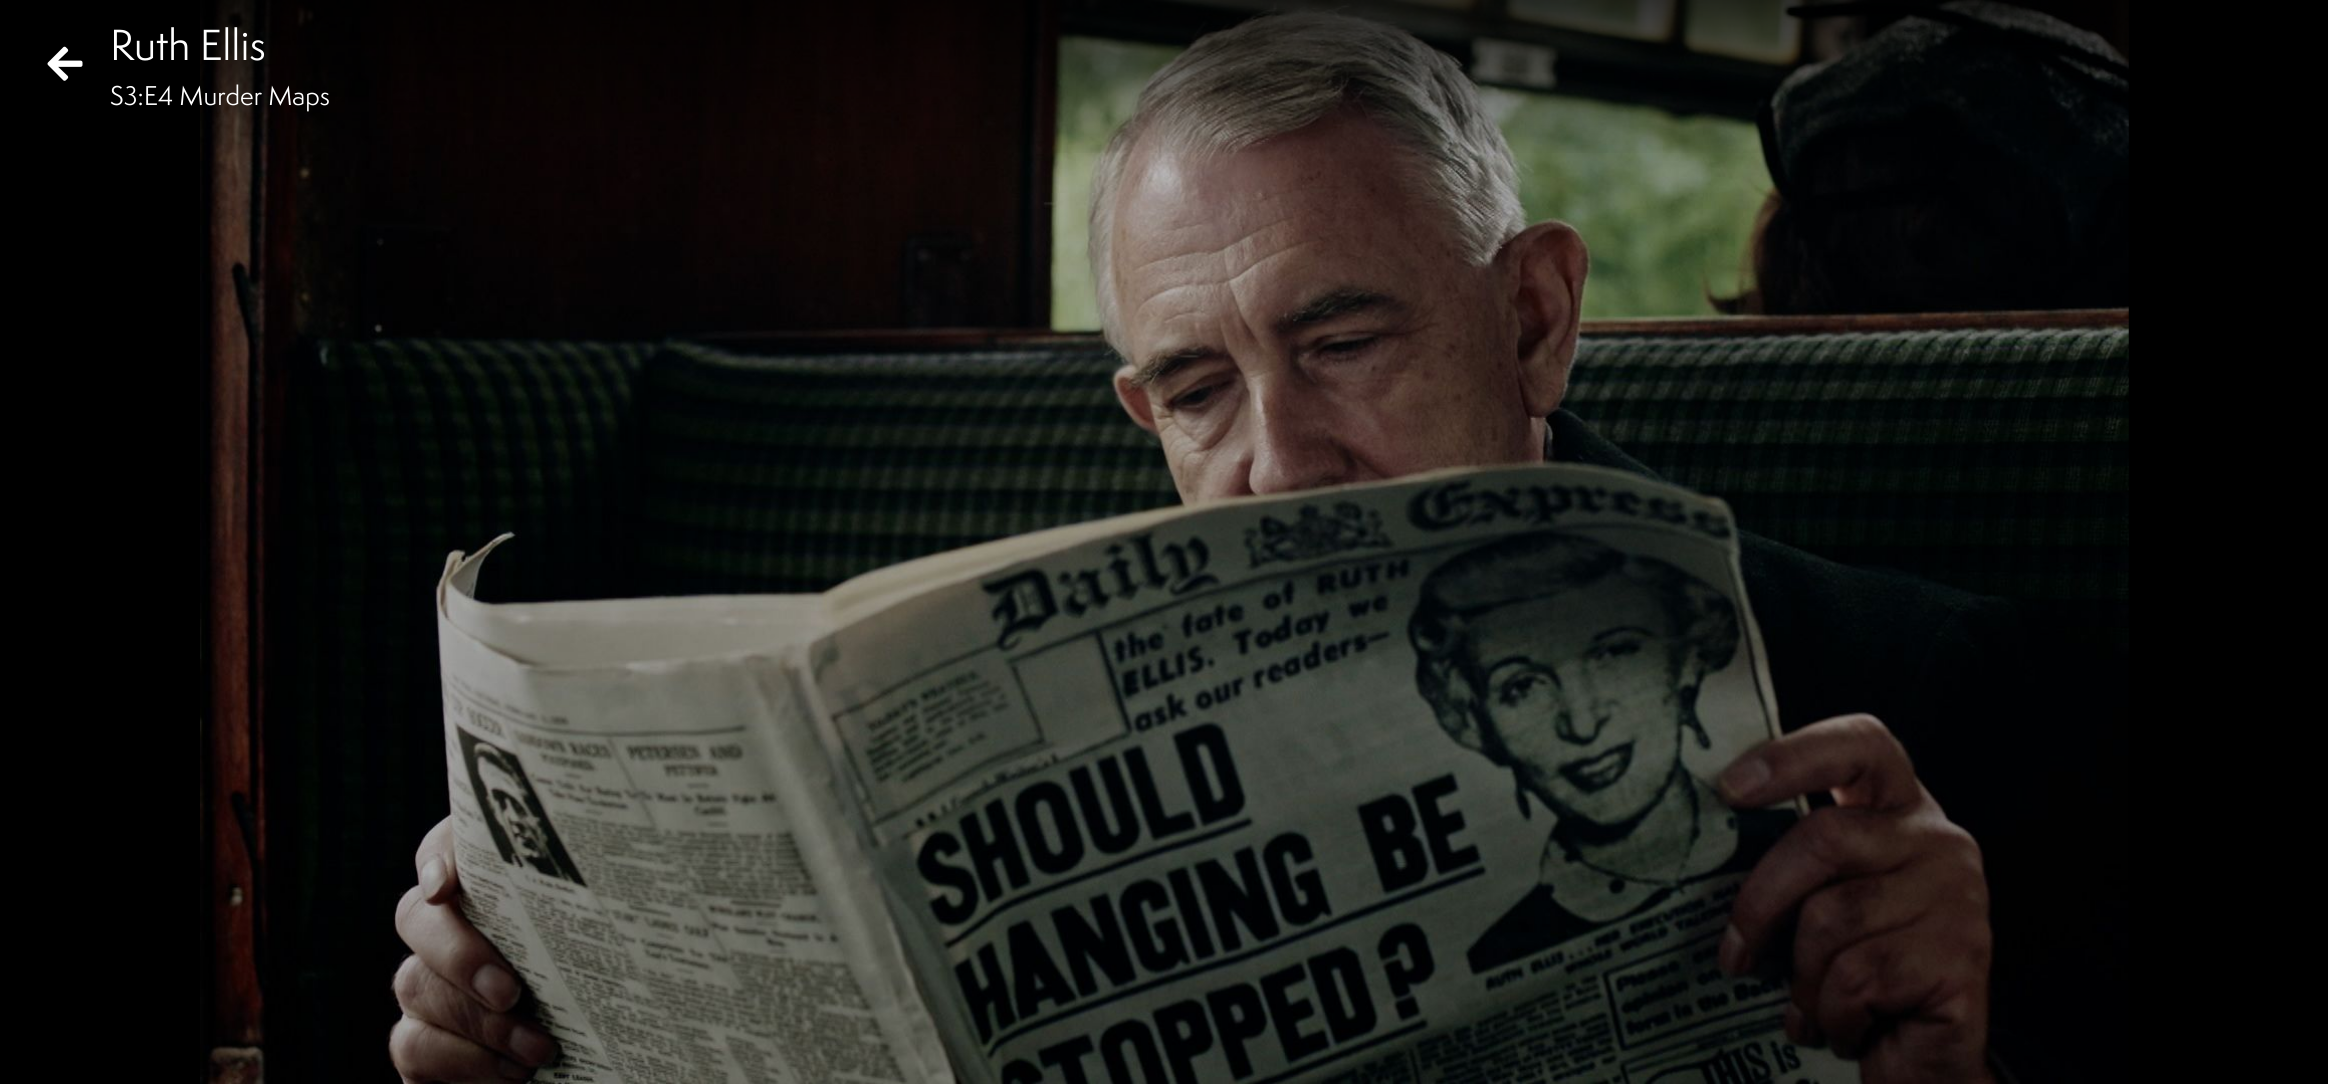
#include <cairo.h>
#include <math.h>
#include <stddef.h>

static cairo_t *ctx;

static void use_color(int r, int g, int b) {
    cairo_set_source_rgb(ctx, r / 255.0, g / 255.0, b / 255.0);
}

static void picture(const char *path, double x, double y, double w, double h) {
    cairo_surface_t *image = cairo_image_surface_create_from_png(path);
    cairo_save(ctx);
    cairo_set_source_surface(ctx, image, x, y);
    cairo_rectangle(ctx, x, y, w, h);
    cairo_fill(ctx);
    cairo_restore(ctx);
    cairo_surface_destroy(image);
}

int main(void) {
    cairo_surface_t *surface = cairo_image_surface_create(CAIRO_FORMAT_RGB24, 2328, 1084);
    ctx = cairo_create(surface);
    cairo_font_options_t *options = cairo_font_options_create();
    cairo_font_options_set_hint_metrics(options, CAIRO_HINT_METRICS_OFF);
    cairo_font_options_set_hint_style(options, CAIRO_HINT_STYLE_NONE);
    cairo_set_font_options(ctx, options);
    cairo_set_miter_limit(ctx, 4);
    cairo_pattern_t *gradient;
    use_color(0, 0, 0);
    cairo_paint(ctx);
    picture("img1.png", 200, 0, 1929, 1084);
    gradient = cairo_pattern_create_linear(1164, 158, 1164, 0);
    cairo_pattern_add_color_stop_rgba(gradient, 0, 0, 0, 0, 0);
    cairo_pattern_add_color_stop_rgba(gradient, 1, 0, 0, 0, 0.7);
    cairo_set_source(ctx, gradient);
    cairo_pattern_destroy(gradient);
    cairo_rectangle(ctx, 200, 0, 1929, 153);
    cairo_fill(ctx);
    picture("img2.png", 47, 46, 36, 35);
    cairo_select_font_face(ctx, "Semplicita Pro", CAIRO_FONT_SLANT_NORMAL, CAIRO_FONT_WEIGHT_NORMAL);
    cairo_set_font_size(ctx, 40);
    use_color(255, 255, 255);
    cairo_move_to(ctx, 110, 60);
    cairo_show_text(ctx, "Ruth Ellis");
    cairo_set_font_size(ctx, 25);
    cairo_move_to(ctx, 110, 105);
    cairo_show_text(ctx, "S3:E4 Murder Maps");
    cairo_surface_write_to_png(surface, "result.png");
    cairo_font_options_destroy(options);
    cairo_destroy(ctx);
    cairo_surface_destroy(surface);
    return 0;
}
